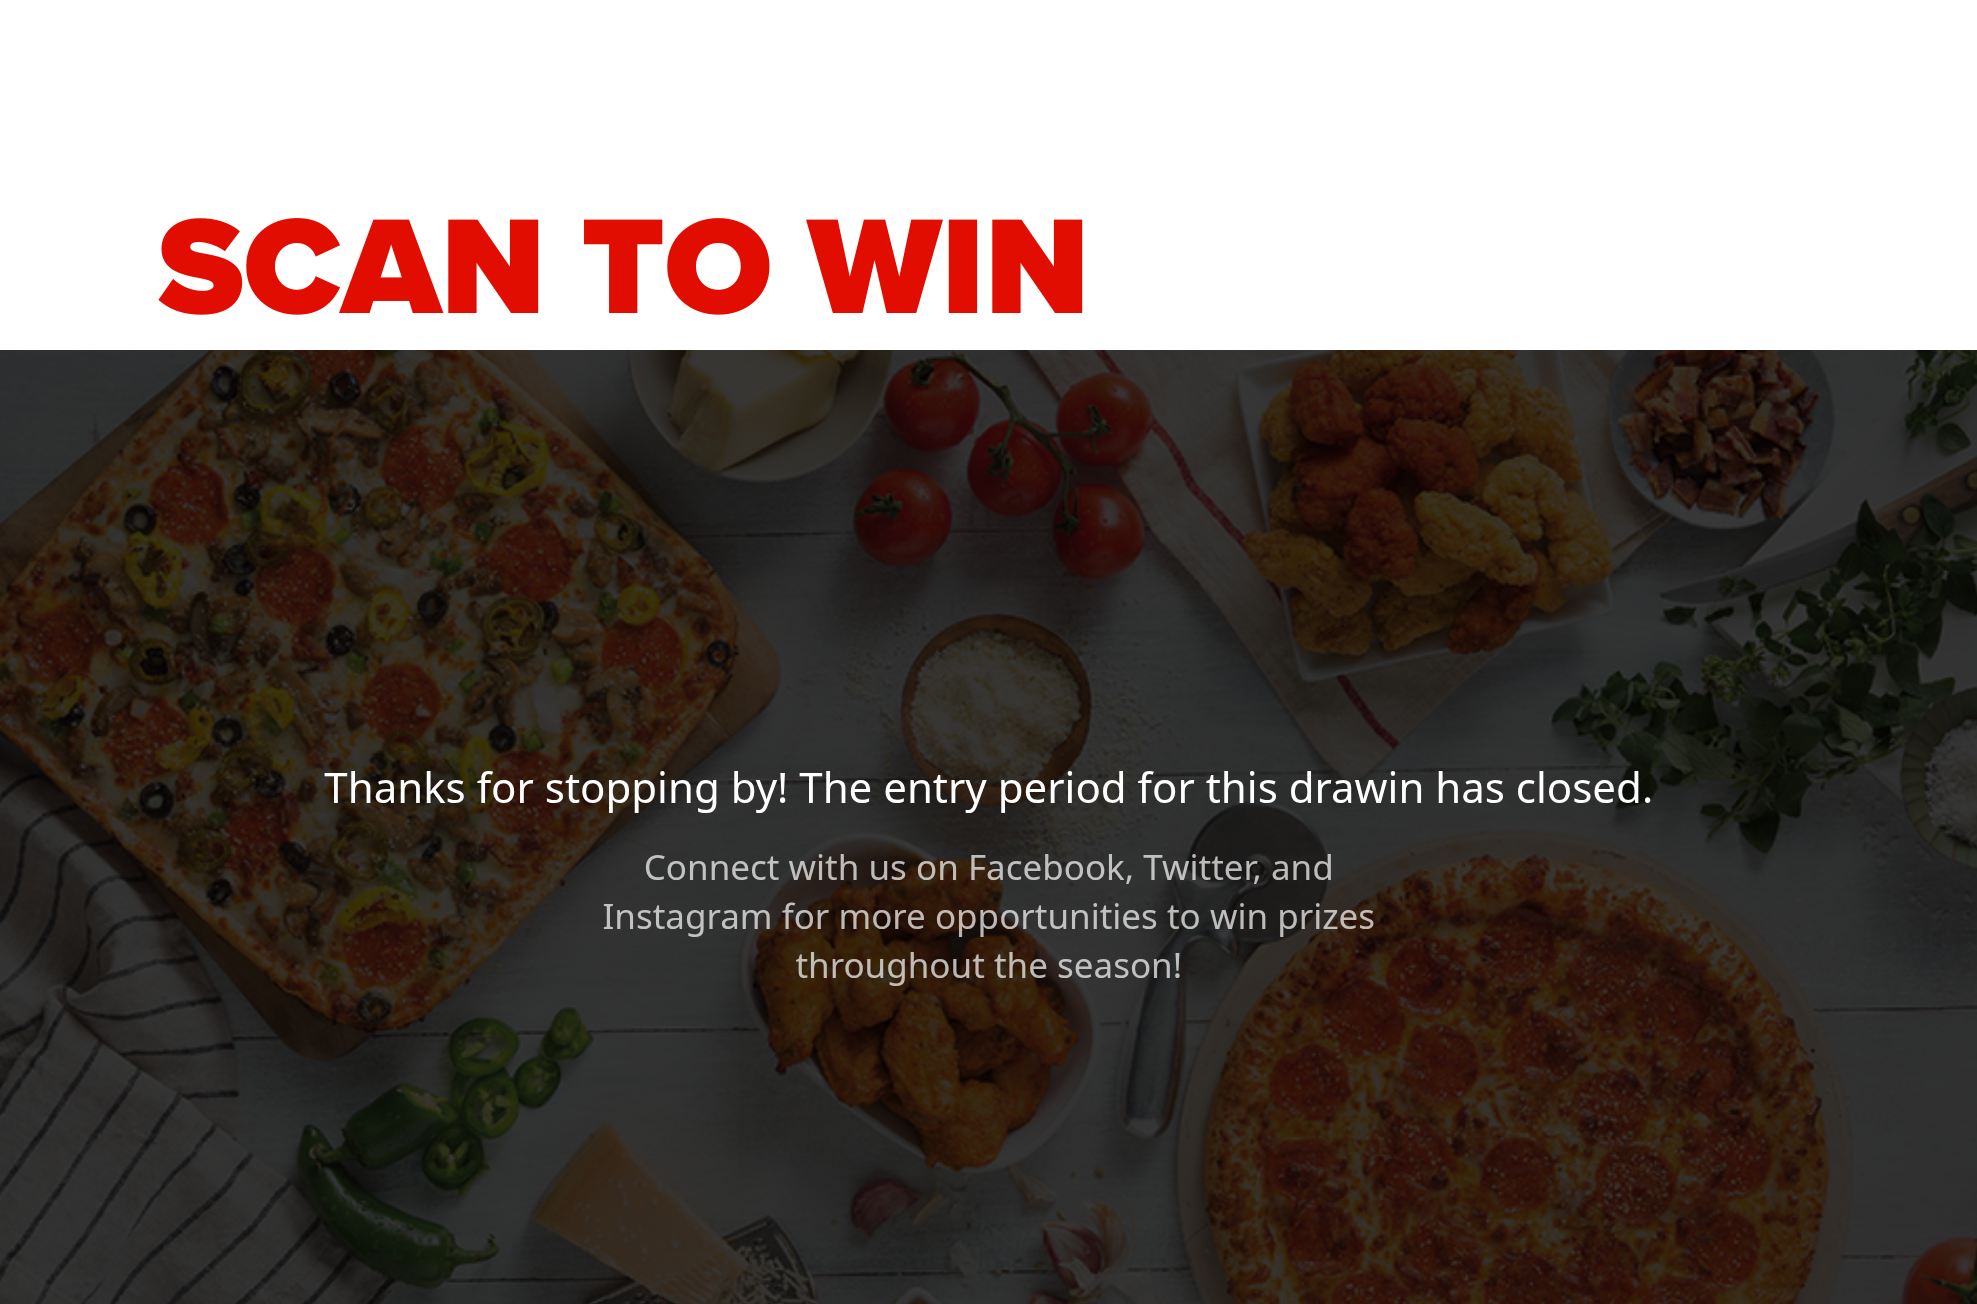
#include <cairo.h>
#include <math.h>
#include <stddef.h>

static cairo_t *ctx;

static void use_color(int r, int g, int b) {
    cairo_set_source_rgb(ctx, r / 255.0, g / 255.0, b / 255.0);
}

static void picture(const char *path, double x, double y, double w, double h) {
    cairo_surface_t *image = cairo_image_surface_create_from_png(path);
    cairo_save(ctx);
    cairo_set_source_surface(ctx, image, x, y);
    cairo_rectangle(ctx, x, y, w, h);
    cairo_fill(ctx);
    cairo_restore(ctx);
    cairo_surface_destroy(image);
}

int main(void) {
    cairo_surface_t *surface = cairo_image_surface_create(CAIRO_FORMAT_RGB24, 1977, 1304);
    ctx = cairo_create(surface);
    cairo_font_options_t *options = cairo_font_options_create();
    cairo_font_options_set_hint_metrics(options, CAIRO_HINT_METRICS_OFF);
    cairo_font_options_set_hint_style(options, CAIRO_HINT_STYLE_NONE);
    cairo_set_font_options(ctx, options);
    cairo_set_miter_limit(ctx, 4);
    use_color(255, 255, 255);
    cairo_paint(ctx);
    cairo_select_font_face(ctx, "Proxima Nova Black", CAIRO_FONT_SLANT_NORMAL, CAIRO_FONT_WEIGHT_NORMAL);
    cairo_set_font_size(ctx, 140);
    use_color(225, 13, 0);
    cairo_move_to(ctx, 158, 313);
    cairo_show_text(ctx, "SCAN TO WIN");
    picture("img1.png", 0, 350, 1977, 954);
    cairo_surface_write_to_png(surface, "result.png");
    cairo_font_options_destroy(options);
    cairo_destroy(ctx);
    cairo_surface_destroy(surface);
    return 0;
}
